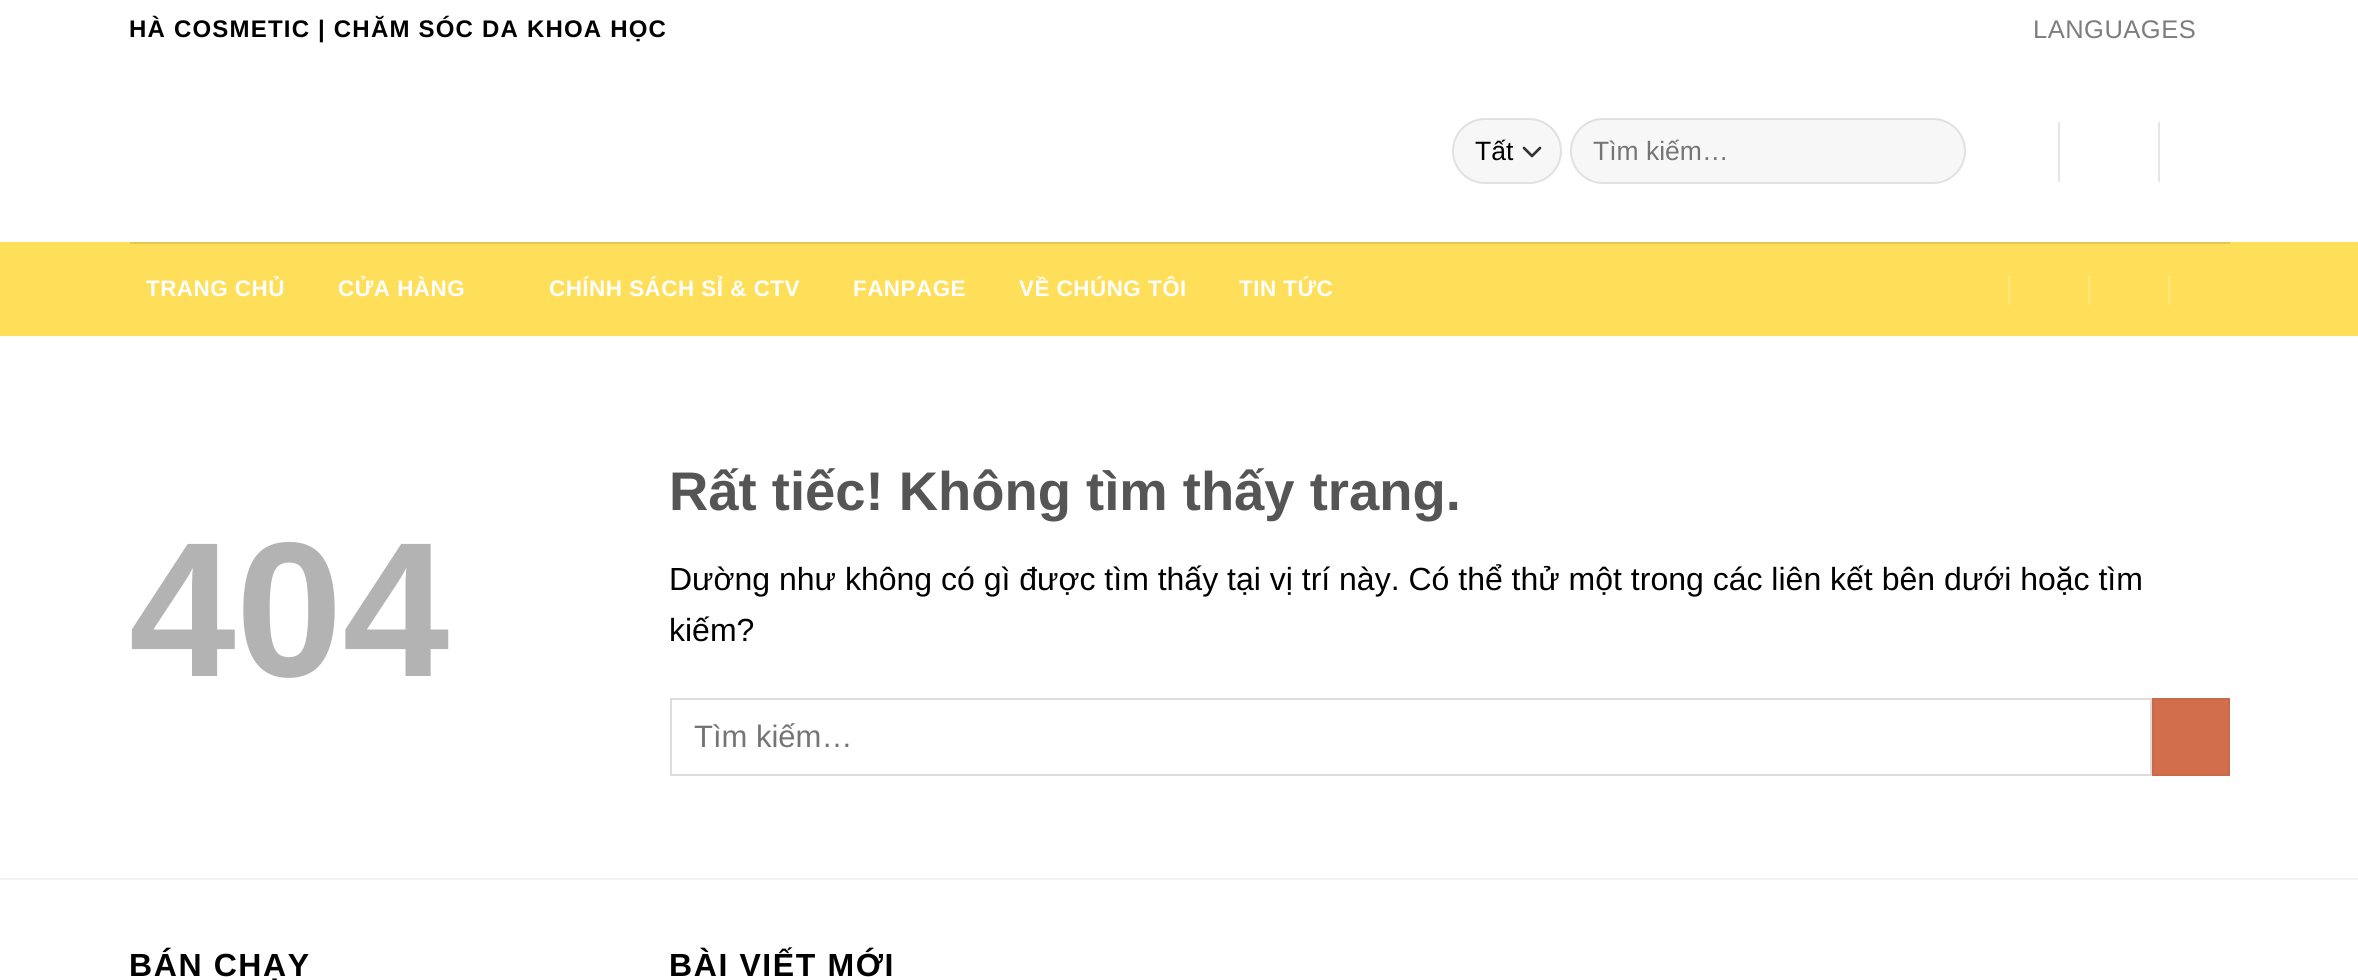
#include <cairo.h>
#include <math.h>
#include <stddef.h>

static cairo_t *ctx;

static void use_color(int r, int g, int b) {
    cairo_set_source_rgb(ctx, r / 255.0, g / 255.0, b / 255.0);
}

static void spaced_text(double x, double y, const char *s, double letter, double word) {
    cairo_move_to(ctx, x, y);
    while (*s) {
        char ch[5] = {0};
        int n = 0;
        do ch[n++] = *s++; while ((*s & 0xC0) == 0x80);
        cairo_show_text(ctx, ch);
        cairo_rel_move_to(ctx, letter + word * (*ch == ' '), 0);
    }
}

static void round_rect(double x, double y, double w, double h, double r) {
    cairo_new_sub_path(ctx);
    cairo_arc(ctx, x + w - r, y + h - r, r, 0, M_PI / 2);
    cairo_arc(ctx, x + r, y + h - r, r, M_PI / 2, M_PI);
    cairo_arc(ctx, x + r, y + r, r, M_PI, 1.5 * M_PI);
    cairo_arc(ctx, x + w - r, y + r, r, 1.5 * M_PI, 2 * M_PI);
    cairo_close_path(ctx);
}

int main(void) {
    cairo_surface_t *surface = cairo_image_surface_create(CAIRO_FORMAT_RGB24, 2358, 980);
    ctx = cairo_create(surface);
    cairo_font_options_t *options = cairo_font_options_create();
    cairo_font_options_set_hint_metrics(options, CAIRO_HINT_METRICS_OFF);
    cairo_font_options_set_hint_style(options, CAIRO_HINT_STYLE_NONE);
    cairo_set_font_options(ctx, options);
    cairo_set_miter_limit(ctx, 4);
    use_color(255, 255, 255);
    cairo_paint(ctx);
    cairo_select_font_face(ctx, "Liberation Sans", CAIRO_FONT_SLANT_NORMAL, CAIRO_FONT_WEIGHT_BOLD);
    cairo_set_font_size(ctx, 24);
    use_color(0, 0, 0);
    spaced_text(129, 37, "HÀ COSMETIC | CHĂM SÓC DA KHOA HỌC", 1.2, 0);
    cairo_select_font_face(ctx, "Liberation Sans", CAIRO_FONT_SLANT_NORMAL, CAIRO_FONT_WEIGHT_NORMAL);
    cairo_set_font_size(ctx, 25.5);
    use_color(125, 125, 125);
    spaced_text(2033, 38, "LANGUAGES", 0.5, 0);
    use_color(247, 247, 247);
    round_rect(1452, 118, 110, 66, 33);
    cairo_fill(ctx);
    cairo_new_path(ctx);
    cairo_move_to(ctx, 1524, 148);
    cairo_line_to(ctx, 1532, 156);
    cairo_line_to(ctx, 1540, 148);
    use_color(51, 51, 51);
    cairo_set_line_width(ctx, 2.7);
    cairo_set_line_cap(ctx, CAIRO_LINE_CAP_ROUND);
    cairo_set_line_join(ctx, CAIRO_LINE_JOIN_ROUND);
    cairo_stroke(ctx);
    round_rect(1453, 119, 108, 64, 32);
    cairo_set_source_rgba(ctx, 0, 0, 0, 0.09);
    cairo_set_line_width(ctx, 2);
    cairo_set_line_cap(ctx, CAIRO_LINE_CAP_BUTT);
    cairo_set_line_join(ctx, CAIRO_LINE_JOIN_MITER);
    cairo_stroke(ctx);
    cairo_set_font_size(ctx, 26.5);
    use_color(0, 0, 0);
    cairo_move_to(ctx, 1475, 160);
    cairo_show_text(ctx, "Tất");
    use_color(247, 247, 247);
    round_rect(1570, 118, 396, 66, 33);
    cairo_fill(ctx);
    round_rect(1571, 119, 394, 64, 32);
    cairo_set_source_rgba(ctx, 0, 0, 0, 0.09);
    cairo_stroke(ctx);
    use_color(117, 117, 117);
    cairo_move_to(ctx, 1593, 160);
    cairo_show_text(ctx, "Tìm kiếm…");
    use_color(230, 230, 230);
    cairo_rectangle(ctx, 2058, 122, 2, 60);
    cairo_fill(ctx);
    cairo_rectangle(ctx, 2158, 122, 2, 60);
    cairo_fill(ctx);
    use_color(255, 222, 89);
    cairo_rectangle(ctx, 0, 242, 2358, 94);
    cairo_fill(ctx);
    use_color(230, 200, 80);
    cairo_rectangle(ctx, 130, 242, 2100, 2);
    cairo_fill(ctx);
    cairo_select_font_face(ctx, "Liberation Sans", CAIRO_FONT_SLANT_NORMAL, CAIRO_FONT_WEIGHT_BOLD);
    cairo_set_font_size(ctx, 22.4);
    use_color(255, 255, 255);
    spaced_text(146, 296, "TRANG CHỦ", 0.5, 0);
    spaced_text(338, 296, "CỬA HÀNG", 0.5, 0);
    spaced_text(549, 296, "CHÍNH SÁCH SỈ & CTV", 0.5, 0);
    spaced_text(853, 296, "FANPAGE", 0.5, 0);
    spaced_text(1019, 296, "VỀ CHÚNG TÔI", 0.5, 0);
    spaced_text(1239, 296, "TIN TỨC", 0.5, 0);
    use_color(255, 229, 122);
    cairo_rectangle(ctx, 2008, 276, 2, 30);
    cairo_fill(ctx);
    cairo_rectangle(ctx, 2088, 276, 2, 30);
    cairo_fill(ctx);
    cairo_rectangle(ctx, 2168, 276, 2, 30);
    cairo_fill(ctx);
    cairo_set_font_size(ctx, 192);
    use_color(179, 179, 179);
    cairo_move_to(ctx, 129, 676);
    cairo_show_text(ctx, "404");
    cairo_set_font_size(ctx, 54.4);
    use_color(85, 85, 85);
    cairo_move_to(ctx, 669, 510);
    cairo_show_text(ctx, "Rất tiếc! Không tìm thấy trang.");
    cairo_select_font_face(ctx, "Liberation Sans", CAIRO_FONT_SLANT_NORMAL, CAIRO_FONT_WEIGHT_NORMAL);
    cairo_set_font_size(ctx, 32);
    use_color(0, 0, 0);
    cairo_move_to(ctx, 669, 590);
    cairo_show_text(ctx, "Dường như không có gì được tìm thấy tại vị trí này. Có thể thử một trong các liên kết bên dưới hoặc tìm");
    cairo_move_to(ctx, 669, 641);
    cairo_show_text(ctx, "kiếm?");
    cairo_rectangle(ctx, 671, 699, 1480, 76);
    use_color(221, 221, 221);
    cairo_stroke(ctx);
    cairo_set_font_size(ctx, 31);
    use_color(117, 117, 117);
    cairo_move_to(ctx, 694, 747);
    cairo_show_text(ctx, "Tìm kiếm…");
    use_color(210, 110, 75);
    cairo_rectangle(ctx, 2153, 699, 76, 76);
    cairo_fill_preserve(ctx);
    use_color(200, 105, 71);
    cairo_stroke(ctx);
    use_color(242, 242, 242);
    cairo_rectangle(ctx, 0, 878, 2358, 2);
    cairo_fill(ctx);
    cairo_select_font_face(ctx, "Liberation Sans", CAIRO_FONT_SLANT_NORMAL, CAIRO_FONT_WEIGHT_BOLD);
    cairo_set_font_size(ctx, 32);
    use_color(0, 0, 0);
    spaced_text(129, 976, "BÁN CHẠY", 1.6, 0);
    spaced_text(669, 976, "BÀI VIẾT MỚI", 1.6, 0);
    cairo_surface_write_to_png(surface, "result.png");
    cairo_font_options_destroy(options);
    cairo_destroy(ctx);
    cairo_surface_destroy(surface);
    return 0;
}
